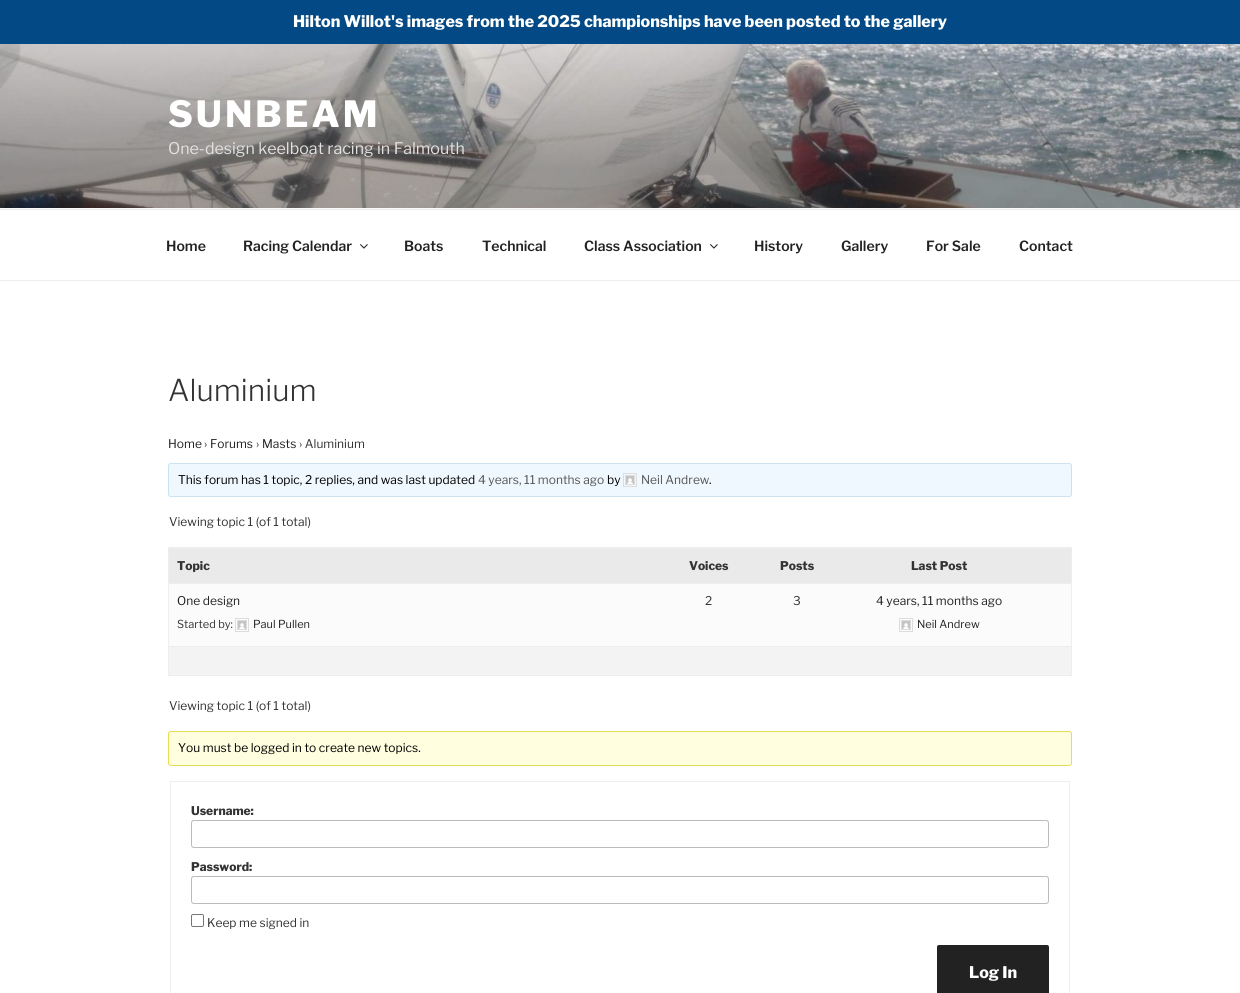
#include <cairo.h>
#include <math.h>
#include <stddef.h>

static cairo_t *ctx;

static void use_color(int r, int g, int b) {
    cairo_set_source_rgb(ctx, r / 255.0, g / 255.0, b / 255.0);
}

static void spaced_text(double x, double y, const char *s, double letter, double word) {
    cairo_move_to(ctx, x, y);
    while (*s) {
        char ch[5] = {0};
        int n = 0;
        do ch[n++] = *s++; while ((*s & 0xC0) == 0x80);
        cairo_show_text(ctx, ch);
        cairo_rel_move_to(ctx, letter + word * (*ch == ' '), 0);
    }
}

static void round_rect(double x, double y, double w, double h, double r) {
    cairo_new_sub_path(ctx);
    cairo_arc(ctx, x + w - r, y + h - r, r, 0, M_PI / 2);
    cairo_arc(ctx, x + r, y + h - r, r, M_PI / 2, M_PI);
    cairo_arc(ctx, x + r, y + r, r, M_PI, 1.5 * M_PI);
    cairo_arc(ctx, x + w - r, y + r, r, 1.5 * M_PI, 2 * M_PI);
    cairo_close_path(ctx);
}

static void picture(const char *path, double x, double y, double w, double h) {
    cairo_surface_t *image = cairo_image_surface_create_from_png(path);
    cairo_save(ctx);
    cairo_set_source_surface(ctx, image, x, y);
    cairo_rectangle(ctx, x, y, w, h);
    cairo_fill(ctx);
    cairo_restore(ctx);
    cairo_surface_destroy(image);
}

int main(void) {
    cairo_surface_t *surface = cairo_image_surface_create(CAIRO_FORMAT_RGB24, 1240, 993);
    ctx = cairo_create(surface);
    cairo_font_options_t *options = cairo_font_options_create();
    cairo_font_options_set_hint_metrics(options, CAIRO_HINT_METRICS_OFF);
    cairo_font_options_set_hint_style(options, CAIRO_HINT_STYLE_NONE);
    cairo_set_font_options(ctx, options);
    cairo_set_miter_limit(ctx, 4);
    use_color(255, 255, 255);
    cairo_paint(ctx);
    use_color(2, 73, 133);
    cairo_rectangle(ctx, 0, 0, 1240, 44);
    cairo_fill(ctx);
    cairo_select_font_face(ctx, "Libre Franklin ExtraBold", CAIRO_FONT_SLANT_NORMAL, CAIRO_FONT_WEIGHT_NORMAL);
    cairo_set_font_size(ctx, 16);
    use_color(255, 255, 255);
    cairo_move_to(ctx, 293, 27);
    cairo_show_text(ctx, "Hilton Willot's images from the 2025 championships have been posted to the gallery");
    use_color(250, 250, 250);
    cairo_rectangle(ctx, 0, 208, 1240, 1);
    cairo_fill(ctx);
    picture("img1.png", 0, 44, 1240, 164);
    cairo_set_font_size(ctx, 36);
    use_color(255, 255, 255);
    spaced_text(168, 127, "SUNBEAM", 3, 0);
    cairo_select_font_face(ctx, "Libre Franklin", CAIRO_FONT_SLANT_NORMAL, CAIRO_FONT_WEIGHT_NORMAL);
    cairo_set_font_size(ctx, 16);
    use_color(226, 225, 225);
    cairo_move_to(ctx, 168, 154);
    cairo_show_text(ctx, "One-design keelboat racing in Falmouth");
    use_color(238, 238, 238);
    cairo_rectangle(ctx, 0, 209, 1240, 1);
    cairo_fill(ctx);
    cairo_rectangle(ctx, 0, 280, 1240, 1);
    cairo_fill(ctx);
    cairo_select_font_face(ctx, "Libre Franklin SemiBold", CAIRO_FONT_SLANT_NORMAL, CAIRO_FONT_WEIGHT_NORMAL);
    cairo_set_font_size(ctx, 14);
    use_color(34, 34, 34);
    cairo_move_to(ctx, 166, 251);
    cairo_show_text(ctx, "Home");
    cairo_move_to(ctx, 243, 251);
    cairo_show_text(ctx, "Racing Calendar");
    picture("img2.png", 360, 244, 8, 5);
    cairo_move_to(ctx, 404, 251);
    cairo_show_text(ctx, "Boats");
    cairo_move_to(ctx, 482, 251);
    cairo_show_text(ctx, "Technical");
    cairo_move_to(ctx, 584, 251);
    cairo_show_text(ctx, "Class Association");
    picture("img2.png", 710, 244, 8, 5);
    cairo_move_to(ctx, 754, 251);
    cairo_show_text(ctx, "History");
    cairo_move_to(ctx, 841, 251);
    cairo_show_text(ctx, "Gallery");
    cairo_move_to(ctx, 926, 251);
    cairo_show_text(ctx, "For Sale");
    cairo_move_to(ctx, 1019, 251);
    cairo_show_text(ctx, "Contact");
    cairo_select_font_face(ctx, "Libre Franklin Light", CAIRO_FONT_SLANT_NORMAL, CAIRO_FONT_WEIGHT_NORMAL);
    cairo_set_font_size(ctx, 30);
    use_color(51, 51, 51);
    cairo_move_to(ctx, 168, 401);
    cairo_show_text(ctx, "Aluminium");
    cairo_select_font_face(ctx, "Libre Franklin", CAIRO_FONT_SLANT_NORMAL, CAIRO_FONT_WEIGHT_NORMAL);
    cairo_set_font_size(ctx, 12);
    use_color(34, 34, 34);
    cairo_move_to(ctx, 168, 448);
    cairo_show_text(ctx, "Home");
    use_color(51, 51, 51);
    cairo_move_to(ctx, 204, 448);
    cairo_show_text(ctx, "›");
    use_color(34, 34, 34);
    cairo_move_to(ctx, 210, 448);
    cairo_show_text(ctx, "Forums");
    use_color(51, 51, 51);
    cairo_move_to(ctx, 256, 448);
    cairo_show_text(ctx, "›");
    use_color(34, 34, 34);
    cairo_move_to(ctx, 262, 448);
    cairo_show_text(ctx, "Masts");
    use_color(51, 51, 51);
    cairo_move_to(ctx, 299, 448);
    cairo_show_text(ctx, "› Aluminium");
    use_color(240, 248, 255);
    round_rect(168.5, 463.5, 903, 33, 2.5);
    cairo_fill_preserve(ctx);
    use_color(206, 225, 239);
    cairo_set_line_width(ctx, 1);
    cairo_stroke(ctx);
    use_color(0, 0, 0);
    cairo_move_to(ctx, 178, 484);
    cairo_show_text(ctx, "This forum has 1 topic, 2 replies, and was last updated");
    use_color(85, 85, 85);
    cairo_move_to(ctx, 478, 484);
    cairo_show_text(ctx, "4 years, 11 months ago");
    use_color(0, 0, 0);
    cairo_move_to(ctx, 607, 484);
    cairo_show_text(ctx, "by");
    cairo_rectangle(ctx, 623.5, 473.5, 13, 13);
    use_color(221, 221, 221);
    cairo_stroke(ctx);
    cairo_rectangle(ctx, 625.5, 475.5, 9, 9);
    cairo_stroke(ctx);
    picture("img3.png", 626, 476, 8, 8);
    use_color(85, 85, 85);
    cairo_move_to(ctx, 641, 484);
    cairo_show_text(ctx, "Neil Andrew");
    use_color(0, 0, 0);
    cairo_move_to(ctx, 709, 484);
    cairo_show_text(ctx, ".");
    use_color(51, 51, 51);
    cairo_move_to(ctx, 169, 526);
    cairo_show_text(ctx, "Viewing topic 1 (of 1 total)");
    cairo_rectangle(ctx, 168.5, 547.5, 903, 128);
    use_color(238, 238, 238);
    cairo_stroke(ctx);
    use_color(234, 234, 234);
    cairo_rectangle(ctx, 169, 549, 902, 34);
    cairo_fill(ctx);
    use_color(238, 238, 238);
    cairo_rectangle(ctx, 169, 548, 902, 1);
    cairo_fill(ctx);
    cairo_select_font_face(ctx, "Libre Franklin ExtraBold", CAIRO_FONT_SLANT_NORMAL, CAIRO_FONT_WEIGHT_NORMAL);
    use_color(51, 51, 51);
    cairo_move_to(ctx, 177, 570);
    cairo_show_text(ctx, "Topic");
    cairo_move_to(ctx, 689, 570);
    cairo_show_text(ctx, "Voices");
    cairo_move_to(ctx, 780, 570);
    cairo_show_text(ctx, "Posts");
    cairo_move_to(ctx, 911, 570);
    cairo_show_text(ctx, "Last Post");
    use_color(251, 251, 251);
    cairo_rectangle(ctx, 169, 584, 902, 62);
    cairo_fill(ctx);
    use_color(238, 238, 238);
    cairo_rectangle(ctx, 169, 583, 902, 1);
    cairo_fill(ctx);
    cairo_select_font_face(ctx, "Libre Franklin", CAIRO_FONT_SLANT_NORMAL, CAIRO_FONT_WEIGHT_NORMAL);
    use_color(34, 34, 34);
    cairo_move_to(ctx, 177, 605);
    cairo_show_text(ctx, "One design");
    cairo_set_font_size(ctx, 11);
    use_color(51, 51, 51);
    cairo_move_to(ctx, 177, 628);
    cairo_show_text(ctx, "Started by:");
    cairo_rectangle(ctx, 235.5, 618.5, 13, 13);
    use_color(221, 221, 221);
    cairo_stroke(ctx);
    cairo_rectangle(ctx, 237.5, 620.5, 9, 9);
    cairo_stroke(ctx);
    picture("img3.png", 238, 621, 8, 8);
    use_color(34, 34, 34);
    cairo_move_to(ctx, 253, 628);
    cairo_show_text(ctx, "Paul Pullen");
    cairo_set_font_size(ctx, 12);
    use_color(51, 51, 51);
    cairo_move_to(ctx, 705, 605);
    cairo_show_text(ctx, "2");
    cairo_move_to(ctx, 793, 605);
    cairo_show_text(ctx, "3");
    use_color(34, 34, 34);
    cairo_move_to(ctx, 876, 605);
    cairo_show_text(ctx, "4 years, 11 months ago");
    cairo_rectangle(ctx, 899.5, 618.5, 13, 13);
    use_color(221, 221, 221);
    cairo_stroke(ctx);
    cairo_rectangle(ctx, 901.5, 620.5, 9, 9);
    cairo_stroke(ctx);
    picture("img3.png", 902, 621, 8, 8);
    cairo_set_font_size(ctx, 11);
    use_color(34, 34, 34);
    cairo_move_to(ctx, 917, 628);
    cairo_show_text(ctx, "Neil Andrew");
    use_color(243, 243, 243);
    cairo_rectangle(ctx, 169, 647, 902, 28);
    cairo_fill(ctx);
    use_color(238, 238, 238);
    cairo_rectangle(ctx, 169, 646, 902, 1);
    cairo_fill(ctx);
    cairo_set_font_size(ctx, 12);
    use_color(51, 51, 51);
    cairo_move_to(ctx, 169, 710);
    cairo_show_text(ctx, "Viewing topic 1 (of 1 total)");
    use_color(255, 255, 224);
    round_rect(168.5, 731.5, 903, 34, 2.5);
    cairo_fill_preserve(ctx);
    use_color(230, 219, 85);
    cairo_stroke(ctx);
    use_color(0, 0, 0);
    cairo_move_to(ctx, 178, 752);
    cairo_show_text(ctx, "You must be logged in to create new topics.");
    cairo_rectangle(ctx, 170.5, 781.5, 899, 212);
    use_color(238, 238, 238);
    cairo_stroke(ctx);
    cairo_select_font_face(ctx, "Libre Franklin ExtraBold", CAIRO_FONT_SLANT_NORMAL, CAIRO_FONT_WEIGHT_NORMAL);
    use_color(51, 51, 51);
    cairo_move_to(ctx, 191, 815);
    cairo_show_text(ctx, "Username:");
    round_rect(191.5, 820.5, 857, 27, 2.5);
    use_color(187, 187, 187);
    cairo_stroke(ctx);
    use_color(51, 51, 51);
    cairo_move_to(ctx, 191, 871);
    cairo_show_text(ctx, "Password:");
    round_rect(191.5, 876.5, 857, 27, 2.5);
    use_color(187, 187, 187);
    cairo_stroke(ctx);
    round_rect(191.5, 914.5, 12, 12, 1.5);
    use_color(118, 118, 118);
    cairo_stroke(ctx);
    cairo_select_font_face(ctx, "Libre Franklin", CAIRO_FONT_SLANT_NORMAL, CAIRO_FONT_WEIGHT_NORMAL);
    use_color(51, 51, 51);
    cairo_move_to(ctx, 207, 927);
    cairo_show_text(ctx, "Keep me signed in");
    use_color(34, 34, 34);
    round_rect(937, 945, 112, 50, 2);
    cairo_fill(ctx);
    cairo_select_font_face(ctx, "Libre Franklin ExtraBold", CAIRO_FONT_SLANT_NORMAL, CAIRO_FONT_WEIGHT_NORMAL);
    cairo_set_font_size(ctx, 16);
    use_color(255, 255, 255);
    cairo_move_to(ctx, 969, 978);
    cairo_show_text(ctx, "Log In");
    cairo_surface_write_to_png(surface, "result.png");
    cairo_font_options_destroy(options);
    cairo_destroy(ctx);
    cairo_surface_destroy(surface);
    return 0;
}
